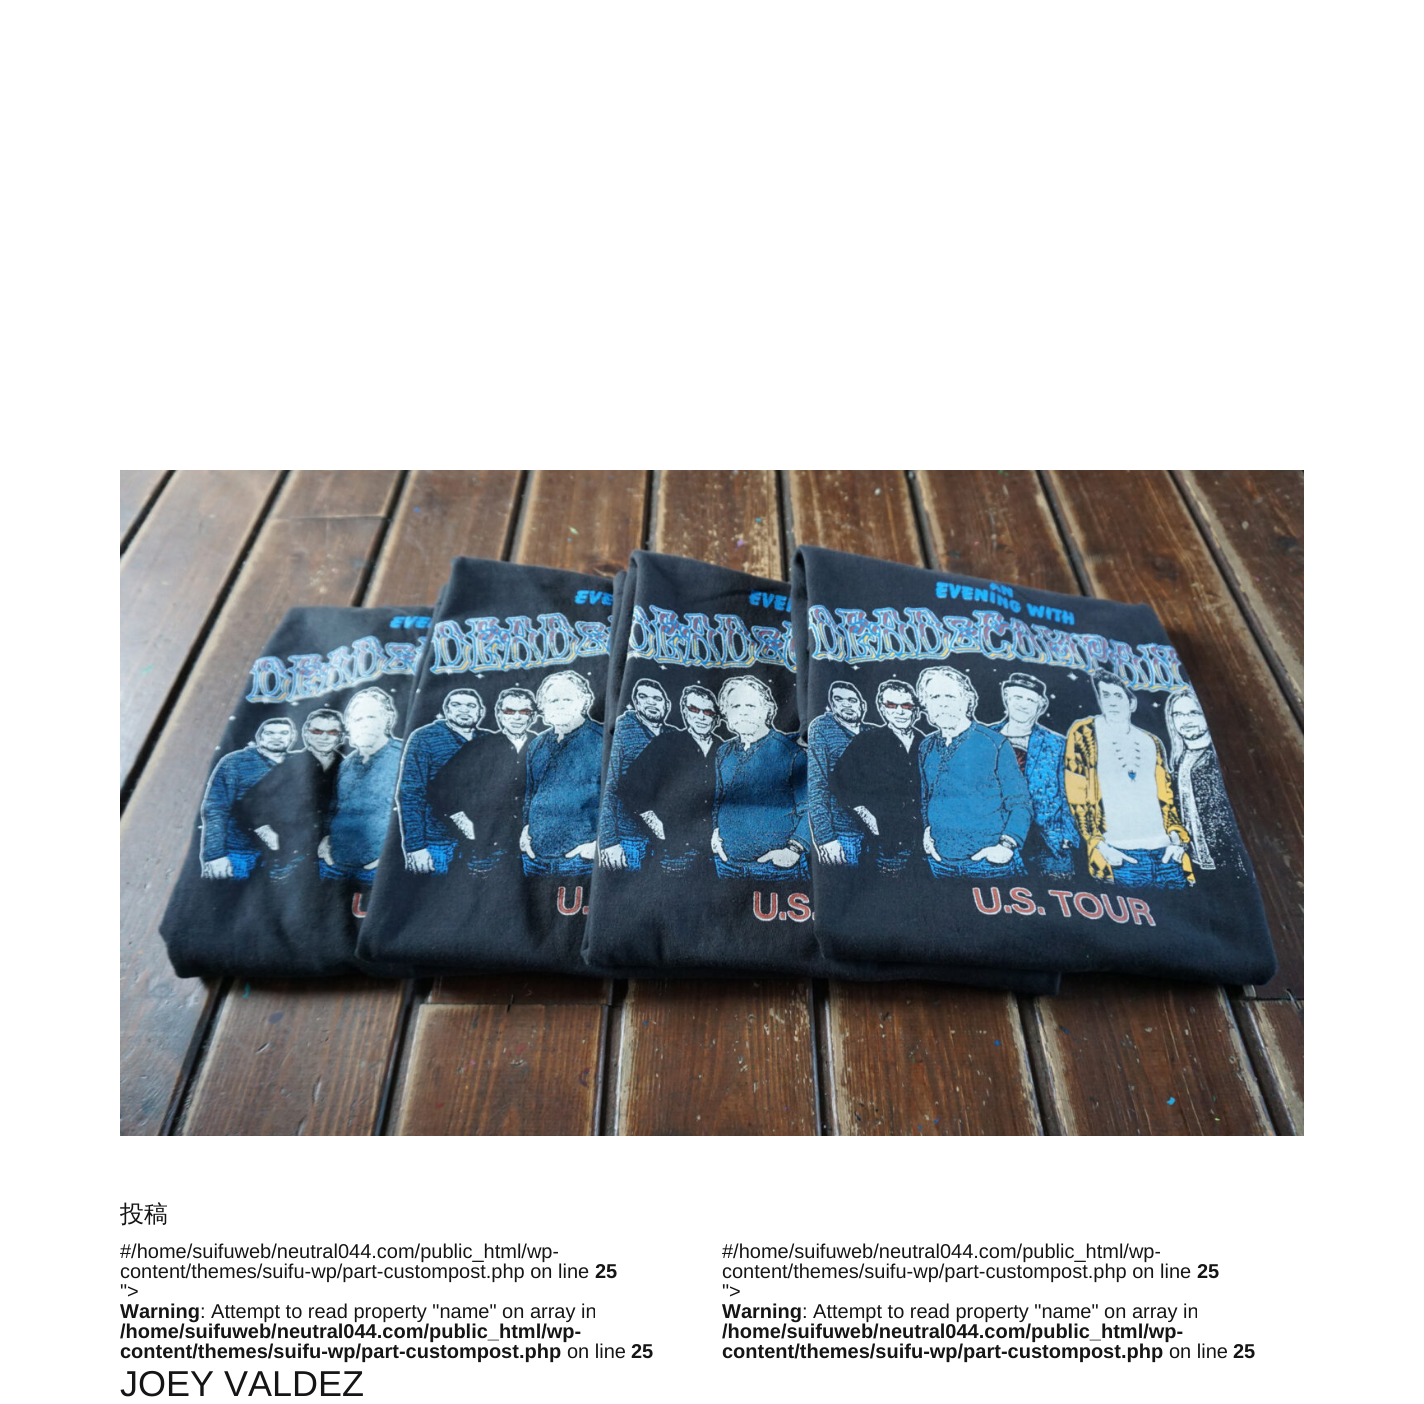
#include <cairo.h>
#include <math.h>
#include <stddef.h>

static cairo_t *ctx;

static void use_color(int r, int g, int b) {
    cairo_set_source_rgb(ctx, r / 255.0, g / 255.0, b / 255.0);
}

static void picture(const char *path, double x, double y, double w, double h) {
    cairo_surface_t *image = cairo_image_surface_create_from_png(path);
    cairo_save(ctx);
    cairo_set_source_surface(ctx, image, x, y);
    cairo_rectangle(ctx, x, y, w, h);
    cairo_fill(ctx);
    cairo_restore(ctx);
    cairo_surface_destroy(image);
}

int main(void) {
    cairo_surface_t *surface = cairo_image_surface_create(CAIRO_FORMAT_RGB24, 1424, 1404);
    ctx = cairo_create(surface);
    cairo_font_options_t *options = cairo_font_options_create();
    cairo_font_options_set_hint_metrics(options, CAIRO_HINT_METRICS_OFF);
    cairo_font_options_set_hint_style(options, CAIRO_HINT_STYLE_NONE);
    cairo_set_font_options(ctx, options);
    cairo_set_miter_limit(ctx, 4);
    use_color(255, 255, 255);
    cairo_paint(ctx);
    picture("img1.png", 120, 470, 1184, 666);
    cairo_select_font_face(ctx, "WenQuanYi Zen Hei Medium", CAIRO_FONT_SLANT_NORMAL, CAIRO_FONT_WEIGHT_NORMAL);
    cairo_set_font_size(ctx, 24);
    use_color(21, 21, 21);
    cairo_move_to(ctx, 120, 1222);
    cairo_show_text(ctx, "投稿");
    cairo_select_font_face(ctx, "Liberation Sans", CAIRO_FONT_SLANT_NORMAL, CAIRO_FONT_WEIGHT_NORMAL);
    cairo_set_font_size(ctx, 20);
    cairo_move_to(ctx, 120, 1258);
    cairo_show_text(ctx, "#/home/suifuweb/neutral044.com/public_html/wp-");
    cairo_move_to(ctx, 120, 1278);
    cairo_show_text(ctx, "content/themes/suifu-wp/part-custompost.php on line");
    cairo_select_font_face(ctx, "Liberation Sans", CAIRO_FONT_SLANT_NORMAL, CAIRO_FONT_WEIGHT_BOLD);
    cairo_move_to(ctx, 595, 1278);
    cairo_show_text(ctx, "25");
    cairo_select_font_face(ctx, "Liberation Sans", CAIRO_FONT_SLANT_NORMAL, CAIRO_FONT_WEIGHT_NORMAL);
    cairo_move_to(ctx, 120, 1298);
    cairo_show_text(ctx, "\">");
    cairo_select_font_face(ctx, "Liberation Sans", CAIRO_FONT_SLANT_NORMAL, CAIRO_FONT_WEIGHT_BOLD);
    cairo_move_to(ctx, 120, 1318);
    cairo_show_text(ctx, "Warning");
    cairo_select_font_face(ctx, "Liberation Sans", CAIRO_FONT_SLANT_NORMAL, CAIRO_FONT_WEIGHT_NORMAL);
    cairo_move_to(ctx, 200, 1318);
    cairo_show_text(ctx, ": Attempt to read property \"name\" on array in");
    cairo_select_font_face(ctx, "Liberation Sans", CAIRO_FONT_SLANT_NORMAL, CAIRO_FONT_WEIGHT_BOLD);
    cairo_move_to(ctx, 120, 1338);
    cairo_show_text(ctx, "/home/suifuweb/neutral044.com/public_html/wp-");
    cairo_move_to(ctx, 120, 1358);
    cairo_show_text(ctx, "content/themes/suifu-wp/part-custompost.php");
    cairo_select_font_face(ctx, "Liberation Sans", CAIRO_FONT_SLANT_NORMAL, CAIRO_FONT_WEIGHT_NORMAL);
    cairo_move_to(ctx, 567, 1358);
    cairo_show_text(ctx, "on line");
    cairo_select_font_face(ctx, "Liberation Sans", CAIRO_FONT_SLANT_NORMAL, CAIRO_FONT_WEIGHT_BOLD);
    cairo_move_to(ctx, 631, 1358);
    cairo_show_text(ctx, "25");
    cairo_select_font_face(ctx, "Liberation Sans", CAIRO_FONT_SLANT_NORMAL, CAIRO_FONT_WEIGHT_NORMAL);
    cairo_move_to(ctx, 722, 1258);
    cairo_show_text(ctx, "#/home/suifuweb/neutral044.com/public_html/wp-");
    cairo_move_to(ctx, 722, 1278);
    cairo_show_text(ctx, "content/themes/suifu-wp/part-custompost.php on line");
    cairo_select_font_face(ctx, "Liberation Sans", CAIRO_FONT_SLANT_NORMAL, CAIRO_FONT_WEIGHT_BOLD);
    cairo_move_to(ctx, 1197, 1278);
    cairo_show_text(ctx, "25");
    cairo_select_font_face(ctx, "Liberation Sans", CAIRO_FONT_SLANT_NORMAL, CAIRO_FONT_WEIGHT_NORMAL);
    cairo_move_to(ctx, 722, 1298);
    cairo_show_text(ctx, "\">");
    cairo_select_font_face(ctx, "Liberation Sans", CAIRO_FONT_SLANT_NORMAL, CAIRO_FONT_WEIGHT_BOLD);
    cairo_move_to(ctx, 722, 1318);
    cairo_show_text(ctx, "Warning");
    cairo_select_font_face(ctx, "Liberation Sans", CAIRO_FONT_SLANT_NORMAL, CAIRO_FONT_WEIGHT_NORMAL);
    cairo_move_to(ctx, 802, 1318);
    cairo_show_text(ctx, ": Attempt to read property \"name\" on array in");
    cairo_select_font_face(ctx, "Liberation Sans", CAIRO_FONT_SLANT_NORMAL, CAIRO_FONT_WEIGHT_BOLD);
    cairo_move_to(ctx, 722, 1338);
    cairo_show_text(ctx, "/home/suifuweb/neutral044.com/public_html/wp-");
    cairo_move_to(ctx, 722, 1358);
    cairo_show_text(ctx, "content/themes/suifu-wp/part-custompost.php");
    cairo_select_font_face(ctx, "Liberation Sans", CAIRO_FONT_SLANT_NORMAL, CAIRO_FONT_WEIGHT_NORMAL);
    cairo_move_to(ctx, 1169, 1358);
    cairo_show_text(ctx, "on line");
    cairo_select_font_face(ctx, "Liberation Sans", CAIRO_FONT_SLANT_NORMAL, CAIRO_FONT_WEIGHT_BOLD);
    cairo_move_to(ctx, 1233, 1358);
    cairo_show_text(ctx, "25");
    cairo_select_font_face(ctx, "Liberation Sans", CAIRO_FONT_SLANT_NORMAL, CAIRO_FONT_WEIGHT_NORMAL);
    cairo_set_font_size(ctx, 36);
    cairo_move_to(ctx, 120, 1396);
    cairo_show_text(ctx, "JOEY VALDEZ");
    cairo_surface_write_to_png(surface, "result.png");
    cairo_font_options_destroy(options);
    cairo_destroy(ctx);
    cairo_surface_destroy(surface);
    return 0;
}
